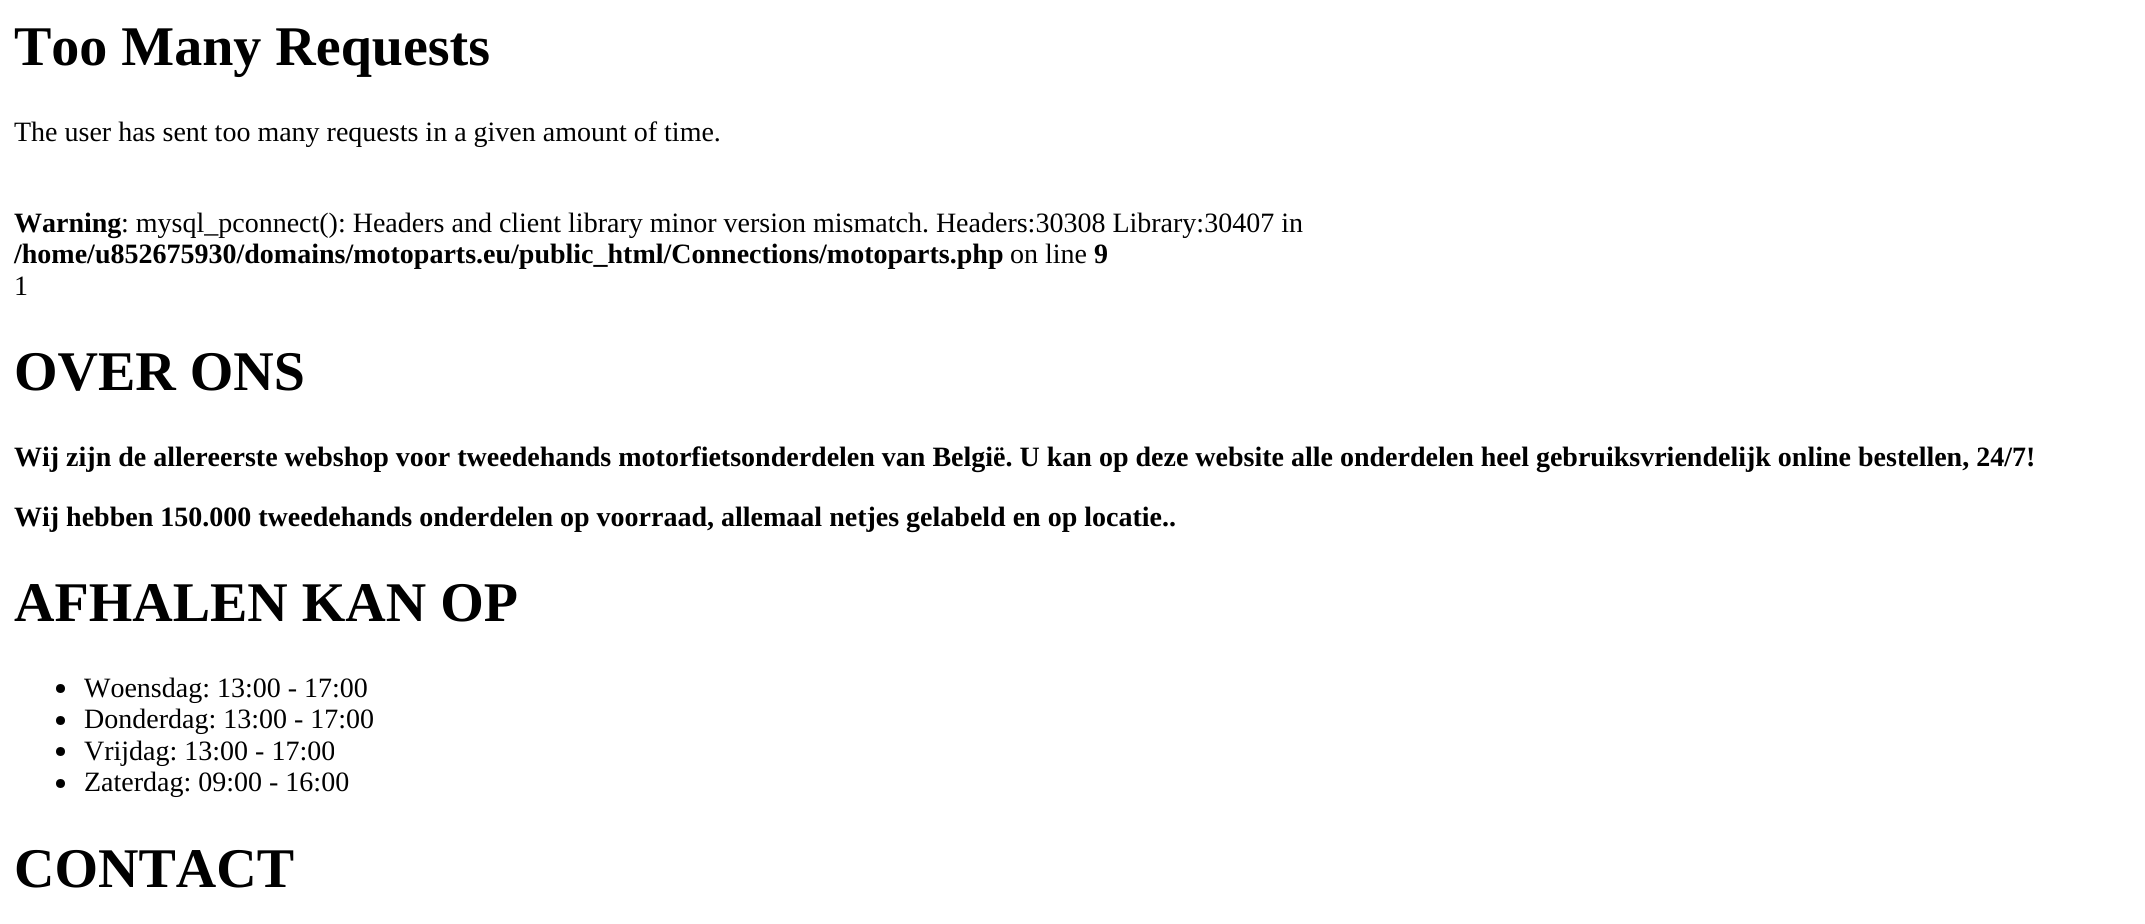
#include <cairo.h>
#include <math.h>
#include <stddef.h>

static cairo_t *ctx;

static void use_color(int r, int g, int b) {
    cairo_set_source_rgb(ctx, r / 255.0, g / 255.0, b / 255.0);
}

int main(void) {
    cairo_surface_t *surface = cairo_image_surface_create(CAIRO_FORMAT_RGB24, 2145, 924);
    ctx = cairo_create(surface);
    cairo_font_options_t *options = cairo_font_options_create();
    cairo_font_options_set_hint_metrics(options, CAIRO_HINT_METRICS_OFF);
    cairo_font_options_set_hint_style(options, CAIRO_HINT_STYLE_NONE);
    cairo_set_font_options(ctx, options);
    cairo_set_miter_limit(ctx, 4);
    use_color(255, 255, 255);
    cairo_paint(ctx);
    cairo_select_font_face(ctx, "Liberation Serif", CAIRO_FONT_SLANT_NORMAL, CAIRO_FONT_WEIGHT_BOLD);
    cairo_set_font_size(ctx, 56);
    use_color(0, 0, 0);
    cairo_move_to(ctx, 14, 65);
    cairo_show_text(ctx, "Too Many Requests");
    cairo_select_font_face(ctx, "Liberation Serif", CAIRO_FONT_SLANT_NORMAL, CAIRO_FONT_WEIGHT_NORMAL);
    cairo_set_font_size(ctx, 28);
    cairo_move_to(ctx, 14, 141);
    cairo_show_text(ctx, "The user has sent too many requests in a given amount of time.");
    cairo_select_font_face(ctx, "Liberation Serif", CAIRO_FONT_SLANT_NORMAL, CAIRO_FONT_WEIGHT_BOLD);
    cairo_move_to(ctx, 14, 232);
    cairo_show_text(ctx, "Warning");
    cairo_select_font_face(ctx, "Liberation Serif", CAIRO_FONT_SLANT_NORMAL, CAIRO_FONT_WEIGHT_NORMAL);
    cairo_move_to(ctx, 121, 232);
    cairo_show_text(ctx, ": mysql_pconnect(): Headers and client library minor version mismatch. Headers:30308 Library:30407 in");
    cairo_select_font_face(ctx, "Liberation Serif", CAIRO_FONT_SLANT_NORMAL, CAIRO_FONT_WEIGHT_BOLD);
    cairo_move_to(ctx, 14, 263);
    cairo_show_text(ctx, "/home/u852675930/domains/motoparts.eu/public_html/Connections/motoparts.php");
    cairo_select_font_face(ctx, "Liberation Serif", CAIRO_FONT_SLANT_NORMAL, CAIRO_FONT_WEIGHT_NORMAL);
    cairo_move_to(ctx, 1010, 263);
    cairo_show_text(ctx, "on line");
    cairo_select_font_face(ctx, "Liberation Serif", CAIRO_FONT_SLANT_NORMAL, CAIRO_FONT_WEIGHT_BOLD);
    cairo_move_to(ctx, 1094, 263);
    cairo_show_text(ctx, "9");
    cairo_select_font_face(ctx, "Liberation Serif", CAIRO_FONT_SLANT_NORMAL, CAIRO_FONT_WEIGHT_NORMAL);
    cairo_move_to(ctx, 14, 295);
    cairo_show_text(ctx, "1");
    cairo_select_font_face(ctx, "Liberation Serif", CAIRO_FONT_SLANT_NORMAL, CAIRO_FONT_WEIGHT_BOLD);
    cairo_set_font_size(ctx, 56);
    cairo_move_to(ctx, 14, 390);
    cairo_show_text(ctx, "OVER ONS");
    cairo_set_font_size(ctx, 28);
    cairo_move_to(ctx, 14, 466);
    cairo_show_text(ctx, "Wij zijn de allereerste webshop voor tweedehands motorfietsonderdelen van België. U kan op deze website alle onderdelen heel gebruiksvriendelijk online bestellen, 24/7!");
    cairo_move_to(ctx, 14, 526);
    cairo_show_text(ctx, "Wij hebben 150.000 tweedehands onderdelen op voorraad, allemaal netjes gelabeld en op locatie..");
    cairo_set_font_size(ctx, 56);
    cairo_move_to(ctx, 14, 621);
    cairo_show_text(ctx, "AFHALEN KAN OP");
    cairo_new_path(ctx);
    cairo_arc(ctx, 60.5, 688.5, 4.5, 0, 2 * M_PI);
    cairo_fill(ctx);
    cairo_select_font_face(ctx, "Liberation Serif", CAIRO_FONT_SLANT_NORMAL, CAIRO_FONT_WEIGHT_NORMAL);
    cairo_set_font_size(ctx, 28);
    cairo_move_to(ctx, 84, 697);
    cairo_show_text(ctx, "Woensdag: 13:00 - 17:00");
    cairo_new_path(ctx);
    cairo_arc(ctx, 60.5, 720.5, 4.5, 0, 2 * M_PI);
    cairo_fill(ctx);
    cairo_move_to(ctx, 84, 728);
    cairo_show_text(ctx, "Donderdag: 13:00 - 17:00");
    cairo_new_path(ctx);
    cairo_arc(ctx, 60.5, 751.5, 4.5, 0, 2 * M_PI);
    cairo_fill(ctx);
    cairo_move_to(ctx, 84, 760);
    cairo_show_text(ctx, "Vrijdag: 13:00 - 17:00");
    cairo_new_path(ctx);
    cairo_arc(ctx, 60.5, 783.5, 4.5, 0, 2 * M_PI);
    cairo_fill(ctx);
    cairo_move_to(ctx, 84, 791);
    cairo_show_text(ctx, "Zaterdag: 09:00 - 16:00");
    cairo_select_font_face(ctx, "Liberation Serif", CAIRO_FONT_SLANT_NORMAL, CAIRO_FONT_WEIGHT_BOLD);
    cairo_set_font_size(ctx, 56);
    cairo_move_to(ctx, 14, 887);
    cairo_show_text(ctx, "CONTACT");
    cairo_surface_write_to_png(surface, "result.png");
    cairo_font_options_destroy(options);
    cairo_destroy(ctx);
    cairo_surface_destroy(surface);
    return 0;
}
